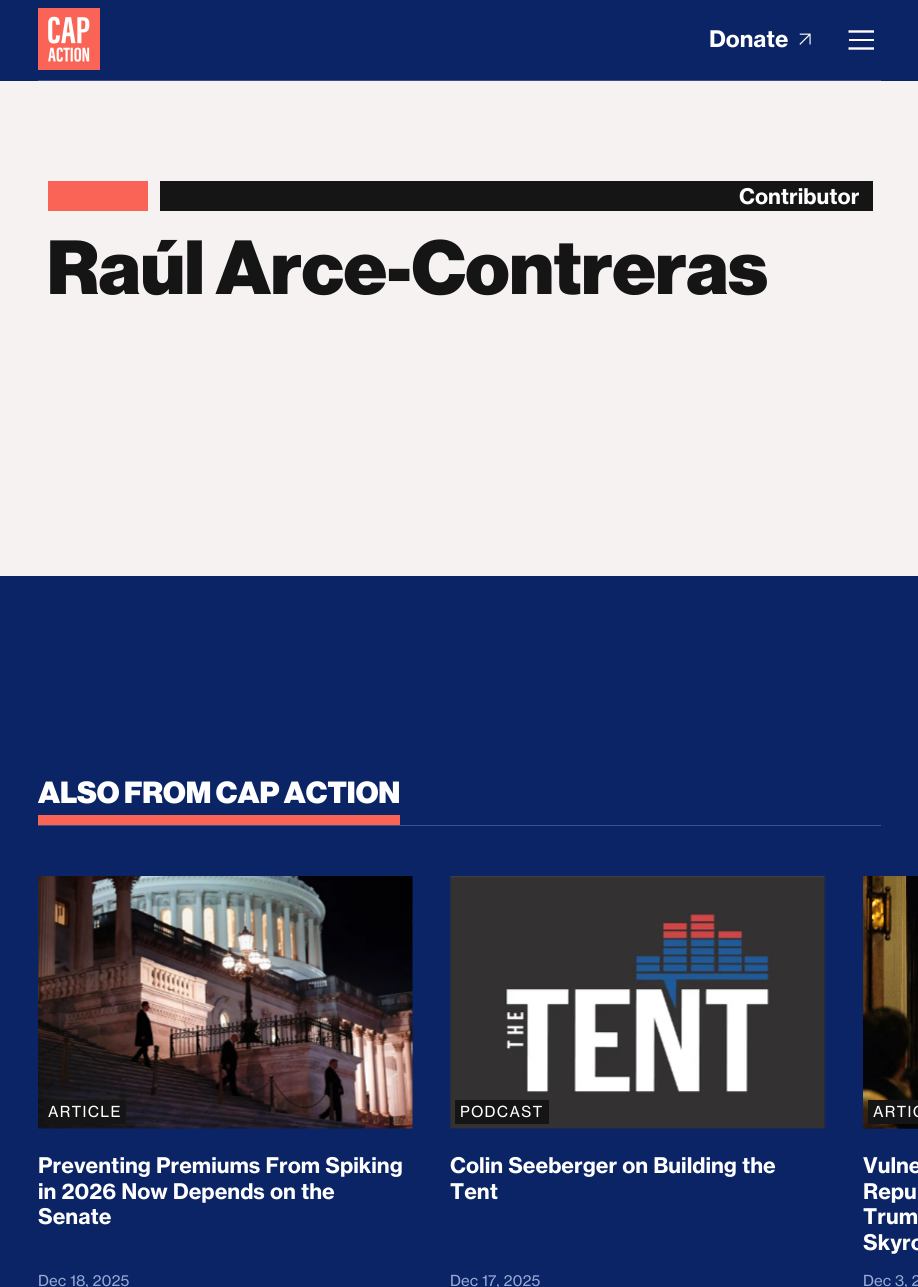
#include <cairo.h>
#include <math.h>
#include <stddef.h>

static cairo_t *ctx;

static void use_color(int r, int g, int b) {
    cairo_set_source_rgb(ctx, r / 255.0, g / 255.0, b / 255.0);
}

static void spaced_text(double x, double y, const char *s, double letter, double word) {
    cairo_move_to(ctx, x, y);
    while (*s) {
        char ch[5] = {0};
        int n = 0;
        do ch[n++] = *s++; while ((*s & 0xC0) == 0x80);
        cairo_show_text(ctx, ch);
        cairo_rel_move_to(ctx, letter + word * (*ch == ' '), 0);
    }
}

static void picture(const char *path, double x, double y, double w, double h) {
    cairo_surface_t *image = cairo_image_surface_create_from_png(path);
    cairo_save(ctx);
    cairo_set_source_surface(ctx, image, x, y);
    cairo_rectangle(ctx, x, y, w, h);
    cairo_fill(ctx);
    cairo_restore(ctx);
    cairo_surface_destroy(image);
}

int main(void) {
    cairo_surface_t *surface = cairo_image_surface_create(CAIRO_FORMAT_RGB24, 918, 1287);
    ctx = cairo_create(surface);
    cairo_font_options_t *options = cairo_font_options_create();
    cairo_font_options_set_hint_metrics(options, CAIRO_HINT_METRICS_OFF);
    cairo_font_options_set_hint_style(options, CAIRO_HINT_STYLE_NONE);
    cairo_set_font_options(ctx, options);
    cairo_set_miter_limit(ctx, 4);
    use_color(11, 36, 102);
    cairo_paint(ctx);
    use_color(60, 80, 133);
    cairo_rectangle(ctx, 38, 80, 843, 1);
    cairo_fill(ctx);
    use_color(250, 100, 87);
    cairo_rectangle(ctx, 38, 8, 62, 62);
    cairo_fill(ctx);
    picture("img1.png", 48, 16, 42, 46);
    cairo_select_font_face(ctx, "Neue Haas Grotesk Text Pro", CAIRO_FONT_SLANT_NORMAL, CAIRO_FONT_WEIGHT_BOLD);
    cairo_set_font_size(ctx, 22.5);
    use_color(255, 255, 255);
    cairo_move_to(ctx, 709, 47);
    cairo_show_text(ctx, "Donate");
    picture("img2.png", 799, 33, 12, 12);
    cairo_new_path(ctx);
    cairo_move_to(ctx, 848.5, 31.5);
    cairo_line_to(ctx, 874, 31.5);
    cairo_set_line_width(ctx, 2.4);
    cairo_stroke(ctx);
    cairo_rectangle(ctx, 849, 39, 25, 2);
    cairo_fill(ctx);
    cairo_new_path(ctx);
    cairo_move_to(ctx, 874, 48.5);
    cairo_line_to(ctx, 848.5, 48.5);
    cairo_stroke(ctx);
    use_color(245, 242, 241);
    cairo_rectangle(ctx, 0, 81, 918, 495);
    cairo_fill(ctx);
    use_color(250, 100, 87);
    cairo_rectangle(ctx, 48, 181, 100, 30);
    cairo_fill(ctx);
    use_color(21, 21, 21);
    cairo_rectangle(ctx, 160, 181, 713, 30);
    cairo_fill(ctx);
    cairo_set_font_size(ctx, 21.25);
    use_color(255, 255, 255);
    cairo_move_to(ctx, 739, 204);
    cairo_show_text(ctx, "Contributor");
    cairo_select_font_face(ctx, "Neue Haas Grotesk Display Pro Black", CAIRO_FONT_SLANT_NORMAL, CAIRO_FONT_WEIGHT_NORMAL);
    cairo_set_font_size(ctx, 75);
    use_color(21, 21, 21);
    cairo_move_to(ctx, 47, 294);
    cairo_show_text(ctx, "Raúl Arce-Contreras");
    use_color(60, 80, 133);
    cairo_rectangle(ctx, 38, 825, 843, 1);
    cairo_fill(ctx);
    cairo_set_font_size(ctx, 30);
    use_color(255, 255, 255);
    cairo_move_to(ctx, 38, 803);
    cairo_show_text(ctx, "ALSO FROM CAP ACTION");
    use_color(250, 100, 87);
    cairo_rectangle(ctx, 38, 815, 362, 10);
    cairo_fill(ctx);
    picture("img3.png", 38, 876, 375, 253);
    use_color(21, 21, 21);
    cairo_rectangle(ctx, 43, 1100, 83, 24);
    cairo_fill(ctx);
    cairo_select_font_face(ctx, "Neue Haas Grotesk Text Pro", CAIRO_FONT_SLANT_NORMAL, CAIRO_FONT_WEIGHT_NORMAL);
    cairo_set_font_size(ctx, 15);
    use_color(255, 255, 255);
    spaced_text(48, 1117, "ARTICLE", 1.25, 0);
    cairo_select_font_face(ctx, "Neue Haas Grotesk Text Pro", CAIRO_FONT_SLANT_NORMAL, CAIRO_FONT_WEIGHT_BOLD);
    cairo_set_font_size(ctx, 21.25);
    cairo_move_to(ctx, 38, 1173);
    cairo_show_text(ctx, "Preventing Premiums From Spiking");
    cairo_move_to(ctx, 38, 1199);
    cairo_show_text(ctx, "in 2026 Now Depends on the");
    cairo_move_to(ctx, 38, 1224);
    cairo_show_text(ctx, "Senate");
    cairo_select_font_face(ctx, "Neue Haas Grotesk Text Pro", CAIRO_FONT_SLANT_NORMAL, CAIRO_FONT_WEIGHT_NORMAL);
    cairo_set_font_size(ctx, 15);
    use_color(153, 170, 214);
    cairo_move_to(ctx, 38, 1286);
    cairo_show_text(ctx, "Dec 18, 2025");
    picture("img4.png", 449, 876, 377, 253);
    use_color(21, 21, 21);
    cairo_rectangle(ctx, 455, 1100, 94, 24);
    cairo_fill(ctx);
    use_color(255, 255, 255);
    spaced_text(460, 1117, "PODCAST", 1.25, 0);
    cairo_select_font_face(ctx, "Neue Haas Grotesk Text Pro", CAIRO_FONT_SLANT_NORMAL, CAIRO_FONT_WEIGHT_BOLD);
    cairo_set_font_size(ctx, 21.25);
    cairo_move_to(ctx, 450, 1173);
    cairo_show_text(ctx, "Colin Seeberger on Building the");
    cairo_move_to(ctx, 450, 1199);
    cairo_show_text(ctx, "Tent");
    cairo_select_font_face(ctx, "Neue Haas Grotesk Text Pro", CAIRO_FONT_SLANT_NORMAL, CAIRO_FONT_WEIGHT_NORMAL);
    cairo_set_font_size(ctx, 15);
    use_color(153, 170, 214);
    cairo_move_to(ctx, 450, 1286);
    cairo_show_text(ctx, "Dec 17, 2025");
    picture("img5.png", 863, 876, 55, 253);
    use_color(21, 21, 21);
    cairo_rectangle(ctx, 868, 1100, 50, 24);
    cairo_fill(ctx);
    use_color(255, 255, 255);
    spaced_text(873, 1117, "ARTIC", 1.25, 0);
    cairo_select_font_face(ctx, "Neue Haas Grotesk Text Pro", CAIRO_FONT_SLANT_NORMAL, CAIRO_FONT_WEIGHT_BOLD);
    cairo_set_font_size(ctx, 21.25);
    cairo_move_to(ctx, 863, 1173);
    cairo_show_text(ctx, "Vulne");
    cairo_move_to(ctx, 863, 1199);
    cairo_show_text(ctx, "Repu");
    cairo_move_to(ctx, 863, 1224);
    cairo_show_text(ctx, "Trum");
    cairo_move_to(ctx, 863, 1250);
    cairo_show_text(ctx, "Skyro");
    cairo_select_font_face(ctx, "Neue Haas Grotesk Text Pro", CAIRO_FONT_SLANT_NORMAL, CAIRO_FONT_WEIGHT_NORMAL);
    cairo_set_font_size(ctx, 15);
    use_color(153, 170, 214);
    cairo_move_to(ctx, 863, 1286);
    cairo_show_text(ctx, "Dec 3, 2");
    cairo_surface_write_to_png(surface, "result.png");
    cairo_font_options_destroy(options);
    cairo_destroy(ctx);
    cairo_surface_destroy(surface);
    return 0;
}
